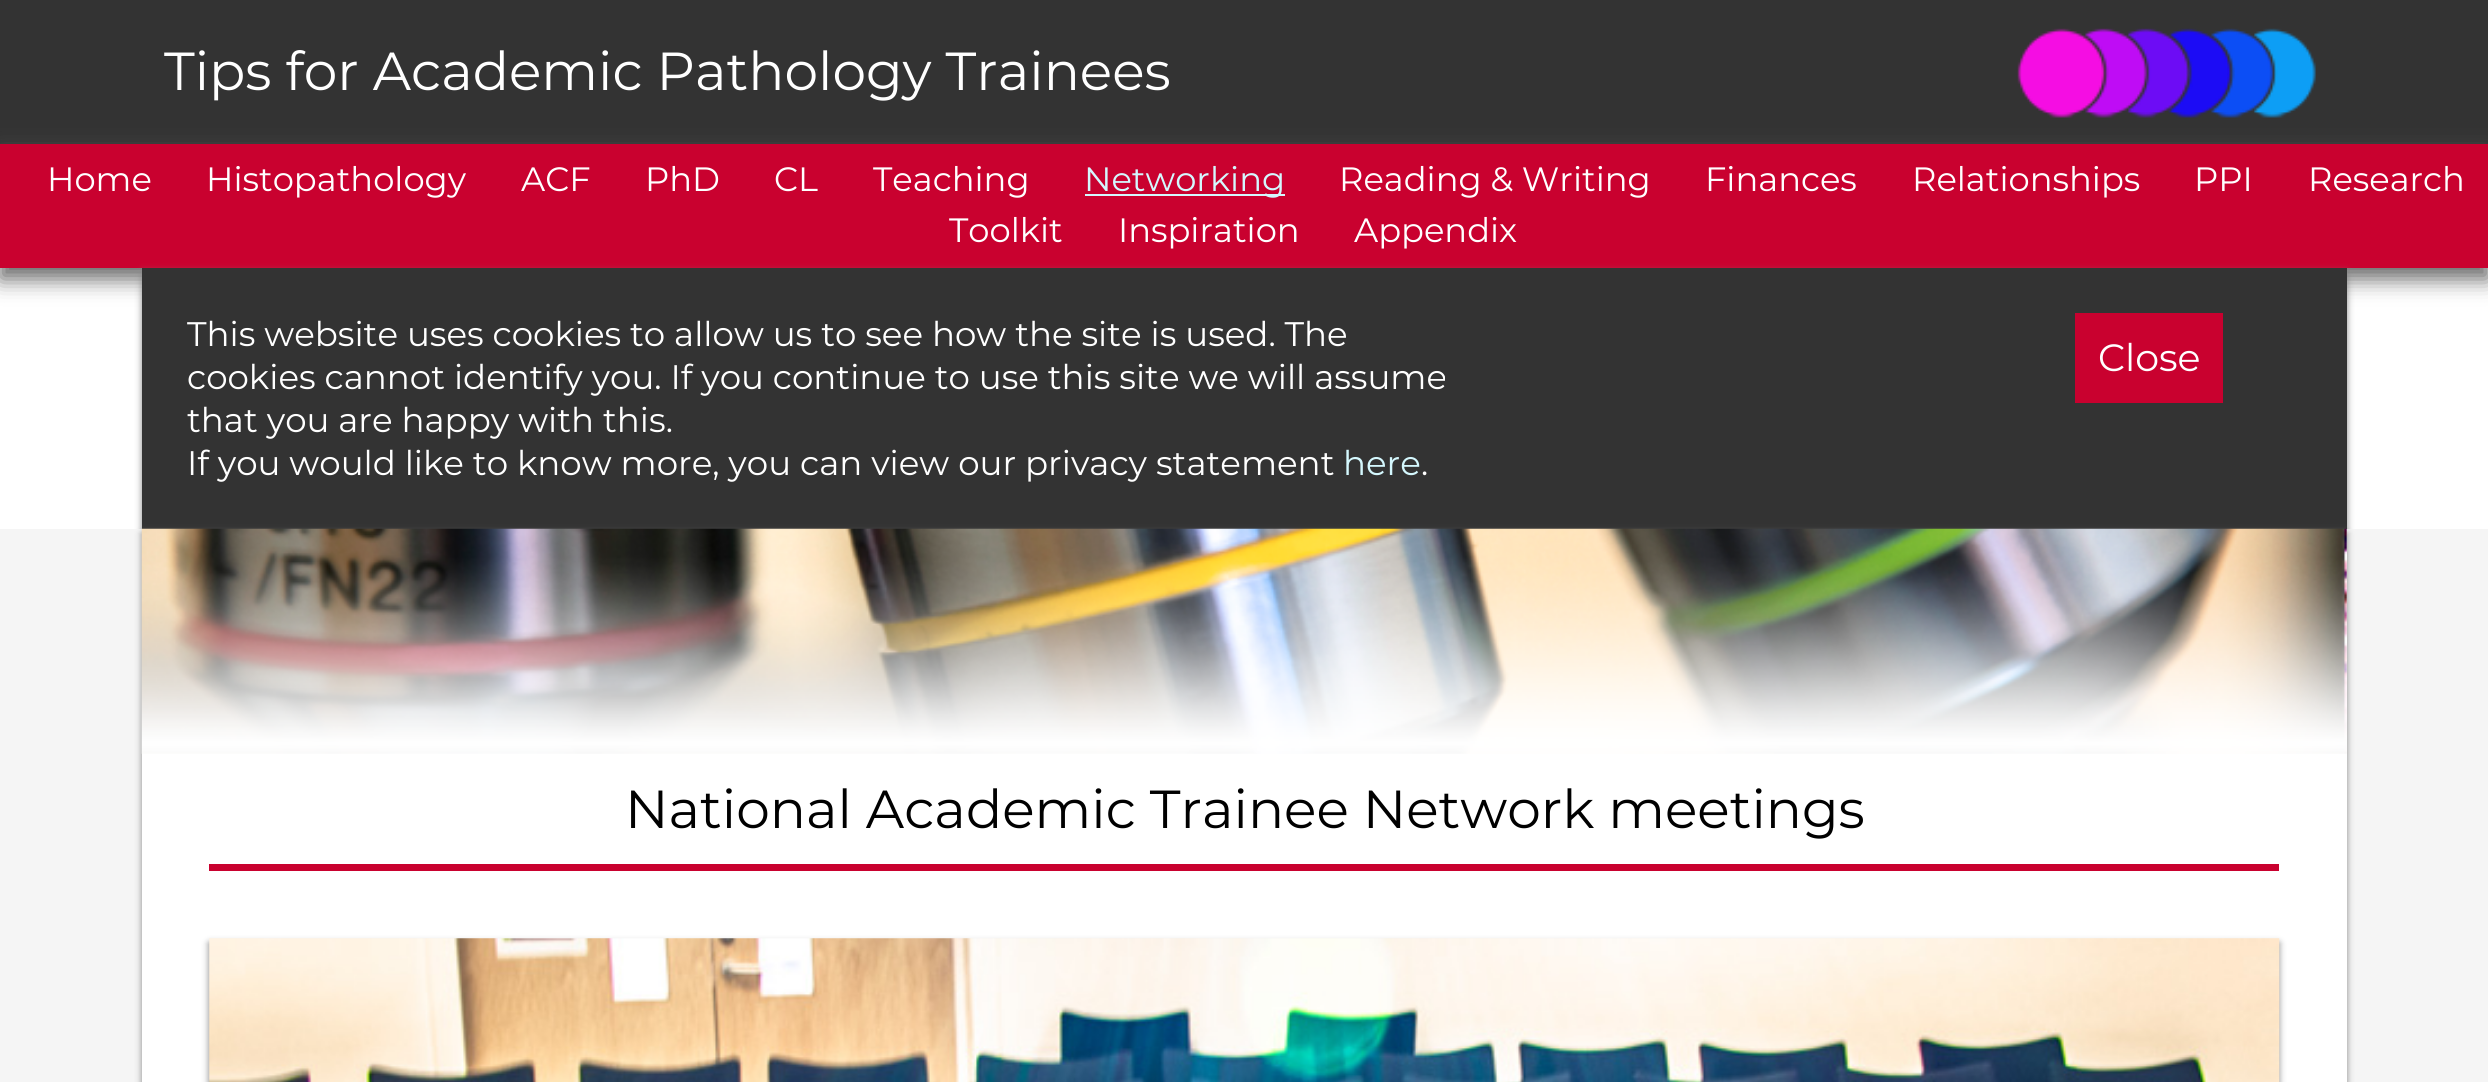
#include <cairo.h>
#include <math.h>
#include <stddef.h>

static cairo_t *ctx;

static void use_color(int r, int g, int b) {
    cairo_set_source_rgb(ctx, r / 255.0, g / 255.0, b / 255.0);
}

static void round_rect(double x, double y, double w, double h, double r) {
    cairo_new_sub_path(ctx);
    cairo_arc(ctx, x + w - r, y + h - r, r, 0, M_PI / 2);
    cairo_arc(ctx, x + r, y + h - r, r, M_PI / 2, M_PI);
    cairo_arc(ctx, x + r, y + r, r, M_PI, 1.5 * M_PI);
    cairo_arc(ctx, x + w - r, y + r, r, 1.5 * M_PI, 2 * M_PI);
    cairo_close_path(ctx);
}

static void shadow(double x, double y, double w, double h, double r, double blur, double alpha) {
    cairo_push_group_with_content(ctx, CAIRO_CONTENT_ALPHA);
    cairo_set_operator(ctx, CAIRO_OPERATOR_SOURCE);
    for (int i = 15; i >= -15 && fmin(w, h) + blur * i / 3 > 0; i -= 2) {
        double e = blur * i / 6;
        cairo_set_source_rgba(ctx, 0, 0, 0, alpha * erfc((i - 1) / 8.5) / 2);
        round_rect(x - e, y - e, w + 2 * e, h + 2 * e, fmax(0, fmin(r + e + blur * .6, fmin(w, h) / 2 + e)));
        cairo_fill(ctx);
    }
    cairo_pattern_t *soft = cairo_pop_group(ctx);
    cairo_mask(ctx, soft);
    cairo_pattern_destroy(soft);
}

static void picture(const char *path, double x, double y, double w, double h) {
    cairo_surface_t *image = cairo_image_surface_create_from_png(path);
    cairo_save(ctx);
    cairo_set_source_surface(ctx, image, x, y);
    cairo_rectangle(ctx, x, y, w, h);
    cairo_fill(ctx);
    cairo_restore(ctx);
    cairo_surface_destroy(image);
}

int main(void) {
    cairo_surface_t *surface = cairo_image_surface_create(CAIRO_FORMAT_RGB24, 2488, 1082);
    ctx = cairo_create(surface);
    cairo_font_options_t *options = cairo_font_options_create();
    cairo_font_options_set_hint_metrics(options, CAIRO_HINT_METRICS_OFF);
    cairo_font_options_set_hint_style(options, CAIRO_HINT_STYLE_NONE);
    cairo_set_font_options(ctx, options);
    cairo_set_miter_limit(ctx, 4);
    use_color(255, 255, 255);
    cairo_paint(ctx);
    use_color(51, 51, 51);
    cairo_rectangle(ctx, 0, 0, 2488, 144);
    cairo_fill(ctx);
    cairo_select_font_face(ctx, "Montserrat Thin", CAIRO_FONT_SLANT_NORMAL, CAIRO_FONT_WEIGHT_NORMAL);
    cairo_set_font_size(ctx, 53.5);
    use_color(255, 255, 255);
    cairo_move_to(ctx, 164, 90);
    cairo_show_text(ctx, "Tips for Academic Pathology Trainees");
    picture("img1.png", 2017, 28, 299, 90);
    use_color(102, 102, 102);
    shadow(0, 155, 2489, 124, 0, 11, 1);
    use_color(201, 1, 47);
    cairo_rectangle(ctx, 0, 144, 2488, 124);
    cairo_fill(ctx);
    cairo_set_font_size(ctx, 33.75);
    use_color(255, 255, 255);
    cairo_move_to(ctx, 47, 191);
    cairo_show_text(ctx, "Home");
    cairo_move_to(ctx, 206, 191);
    cairo_show_text(ctx, "Histopathology");
    cairo_move_to(ctx, 521, 191);
    cairo_show_text(ctx, "ACF");
    cairo_move_to(ctx, 645, 191);
    cairo_show_text(ctx, "PhD");
    cairo_move_to(ctx, 774, 191);
    cairo_show_text(ctx, "CL");
    cairo_move_to(ctx, 873, 191);
    cairo_show_text(ctx, "Teaching");
    use_color(212, 248, 254);
    cairo_rectangle(ctx, 1085, 194, 200, 2);
    cairo_fill(ctx);
    cairo_move_to(ctx, 1084, 191);
    cairo_show_text(ctx, "Networking");
    use_color(255, 255, 255);
    cairo_move_to(ctx, 1339, 191);
    cairo_show_text(ctx, "Reading & Writing");
    cairo_move_to(ctx, 1705, 191);
    cairo_show_text(ctx, "Finances");
    cairo_move_to(ctx, 1912, 191);
    cairo_show_text(ctx, "Relationships");
    cairo_move_to(ctx, 2194, 191);
    cairo_show_text(ctx, "PPI");
    cairo_move_to(ctx, 2308, 191);
    cairo_show_text(ctx, "Research");
    cairo_move_to(ctx, 949, 242);
    cairo_show_text(ctx, "Toolkit");
    cairo_move_to(ctx, 1118, 242);
    cairo_show_text(ctx, "Inspiration");
    cairo_move_to(ctx, 1354, 242);
    cairo_show_text(ctx, "Appendix");
    use_color(136, 136, 136);
    shadow(142, 272, 2205, 261, 0, 3.5, 1);
    use_color(51, 51, 51);
    cairo_rectangle(ctx, 142, 268, 2205, 261);
    cairo_fill(ctx);
    cairo_set_font_size(ctx, 34.05);
    use_color(255, 255, 255);
    cairo_move_to(ctx, 187, 346);
    cairo_show_text(ctx, "This website uses cookies to allow us to see how the site is used. The");
    cairo_move_to(ctx, 187, 389);
    cairo_show_text(ctx, "cookies cannot identify you. If you continue to use this site we will assume");
    cairo_move_to(ctx, 187, 432);
    cairo_show_text(ctx, "that you are happy with this.");
    cairo_move_to(ctx, 187, 475);
    cairo_show_text(ctx, "If you would like to know more, you can view our privacy statement");
    cairo_set_font_size(ctx, 34);
    use_color(212, 248, 254);
    cairo_move_to(ctx, 1343, 475);
    cairo_show_text(ctx, "here");
    cairo_set_font_size(ctx, 34.05);
    use_color(255, 255, 255);
    cairo_move_to(ctx, 1421, 475);
    cairo_show_text(ctx, ".");
    use_color(201, 1, 47);
    cairo_rectangle(ctx, 2075, 313, 148, 90);
    cairo_fill(ctx);
    cairo_set_font_size(ctx, 38);
    use_color(255, 255, 255);
    cairo_move_to(ctx, 2098, 371);
    cairo_show_text(ctx, "Close");
    use_color(245, 245, 245);
    cairo_rectangle(ctx, 0, 529, 2488, 553);
    cairo_fill(ctx);
    use_color(136, 136, 136);
    shadow(142, 533, 2205, 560, 0, 3.5, 1);
    use_color(255, 255, 255);
    cairo_rectangle(ctx, 142, 529, 2205, 553);
    cairo_fill(ctx);
    picture("img2.png", 141, 528, 2206, 226);
    cairo_set_font_size(ctx, 53.5);
    use_color(0, 0, 0);
    cairo_move_to(ctx, 625, 828);
    cairo_show_text(ctx, "National Academic Trainee Network meetings");
    use_color(201, 1, 47);
    cairo_rectangle(ctx, 209, 864, 2070, 7);
    cairo_fill(ctx);
    use_color(136, 136, 136);
    shadow(209, 943, 2070, 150, 0, 3.5, 1);
    picture("img3.png", 209, 938, 2071, 144);
    cairo_surface_write_to_png(surface, "result.png");
    cairo_font_options_destroy(options);
    cairo_destroy(ctx);
    cairo_surface_destroy(surface);
    return 0;
}
